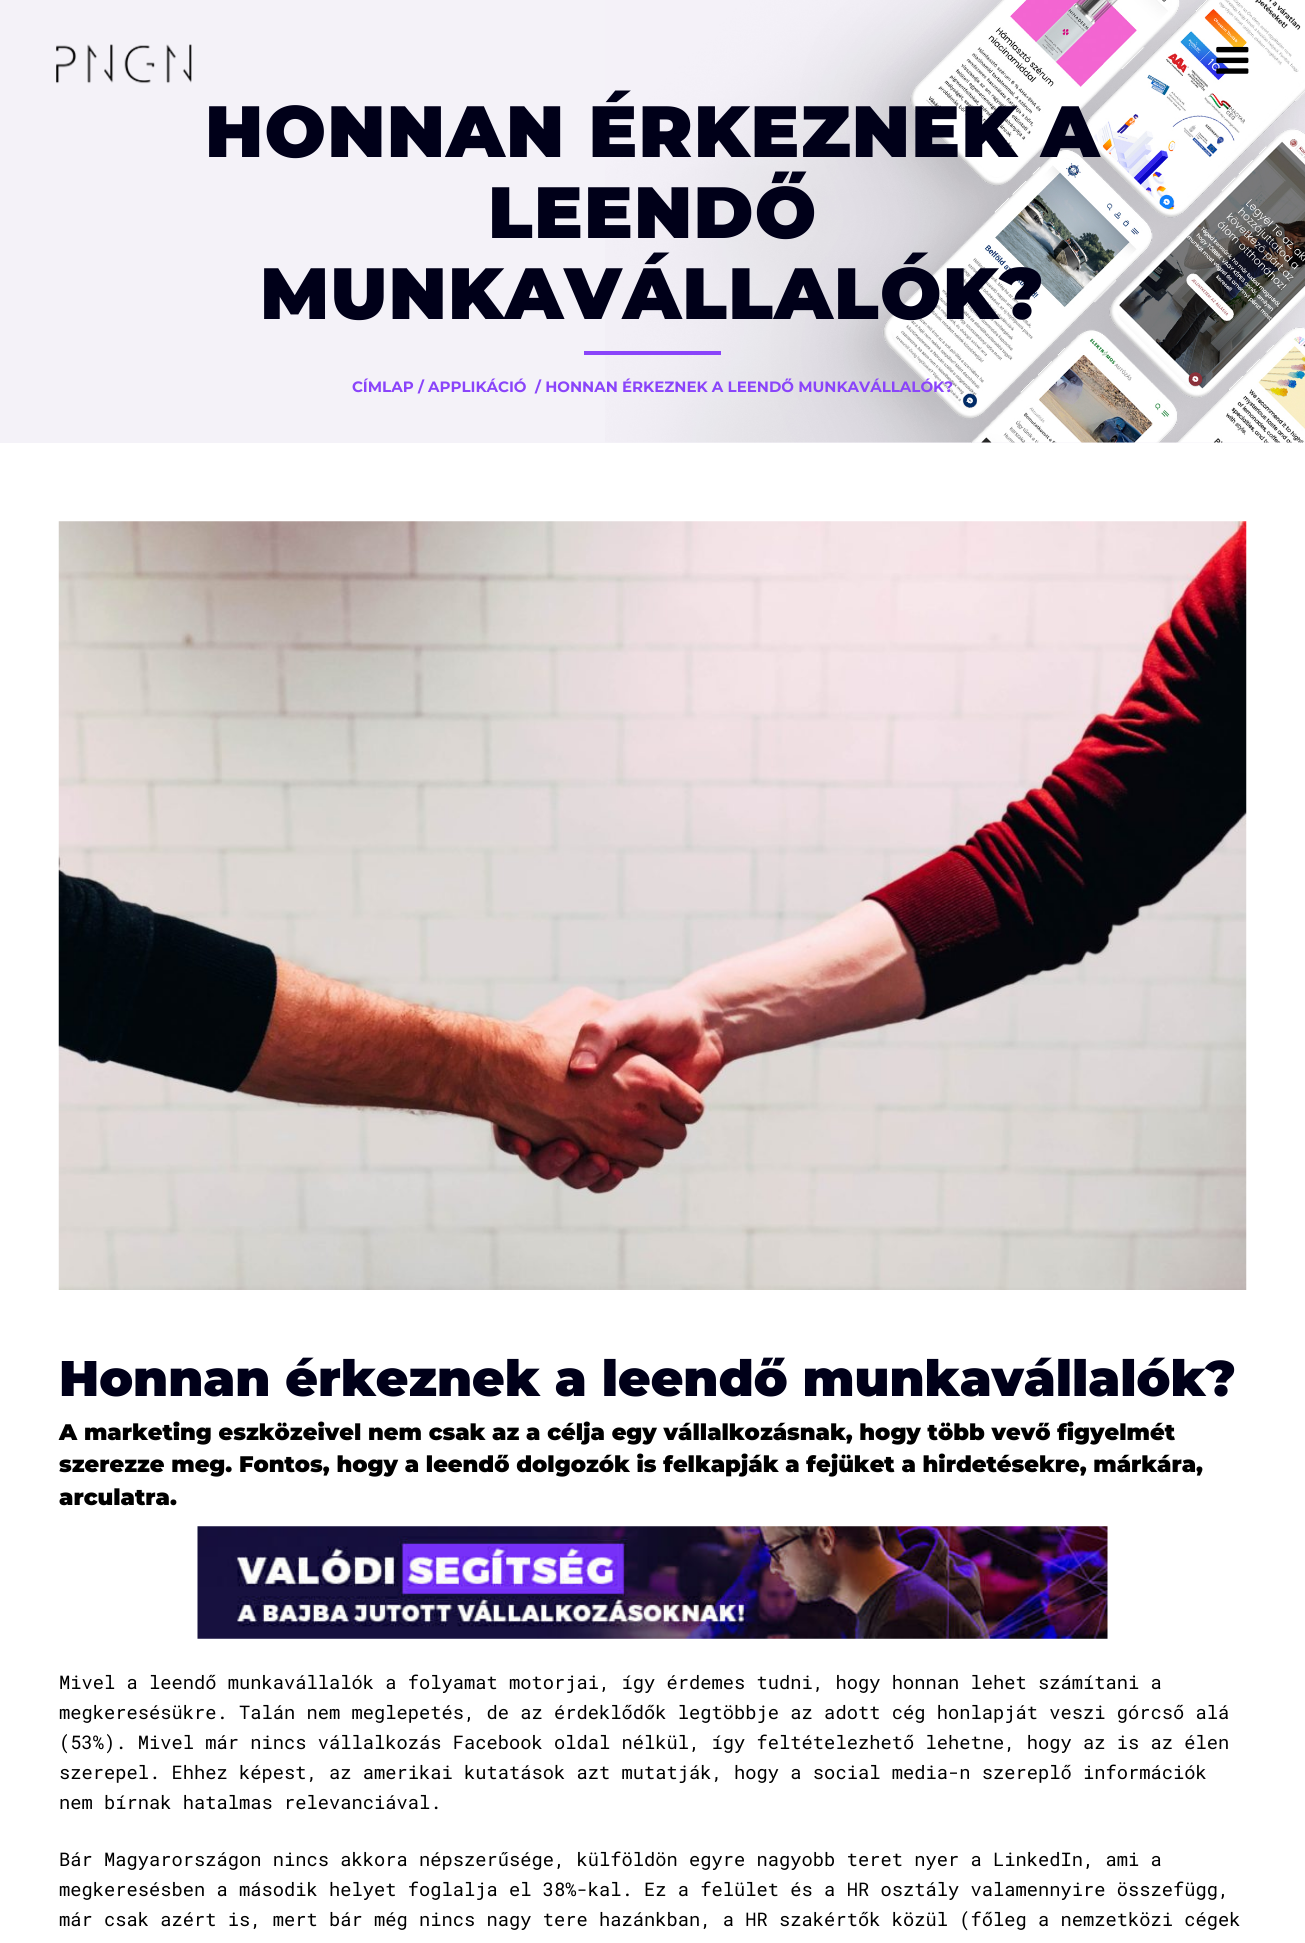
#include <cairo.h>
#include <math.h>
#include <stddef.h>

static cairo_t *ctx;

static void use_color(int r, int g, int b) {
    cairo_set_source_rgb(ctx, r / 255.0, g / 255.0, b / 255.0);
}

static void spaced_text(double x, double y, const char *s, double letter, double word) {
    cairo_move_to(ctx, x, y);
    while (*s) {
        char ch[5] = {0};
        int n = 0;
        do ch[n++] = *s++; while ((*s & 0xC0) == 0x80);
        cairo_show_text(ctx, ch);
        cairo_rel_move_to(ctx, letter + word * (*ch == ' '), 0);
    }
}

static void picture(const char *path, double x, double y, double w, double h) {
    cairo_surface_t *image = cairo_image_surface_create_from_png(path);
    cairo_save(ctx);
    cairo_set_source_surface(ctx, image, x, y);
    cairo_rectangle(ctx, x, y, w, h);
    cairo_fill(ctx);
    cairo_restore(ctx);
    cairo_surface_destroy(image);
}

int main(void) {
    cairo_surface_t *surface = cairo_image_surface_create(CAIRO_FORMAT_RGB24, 1305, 1943);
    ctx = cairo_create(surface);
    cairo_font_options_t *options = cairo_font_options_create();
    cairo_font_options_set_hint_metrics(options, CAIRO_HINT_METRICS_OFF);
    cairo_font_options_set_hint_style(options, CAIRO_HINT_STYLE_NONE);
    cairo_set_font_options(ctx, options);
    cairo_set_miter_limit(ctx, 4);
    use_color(255, 255, 255);
    cairo_paint(ctx);
    use_color(244, 242, 248);
    cairo_rectangle(ctx, 0, 0, 1305, 443);
    cairo_fill(ctx);
    picture("img1.png", 56, 44, 136, 40);
    picture("img3.png", 605, 0, 700, 443);
    picture("img2.png", 1216, 46, 33, 28);
    cairo_select_font_face(ctx, "Montserrat Black", CAIRO_FONT_SLANT_NORMAL, CAIRO_FONT_WEIGHT_NORMAL);
    cairo_set_font_size(ctx, 72.5);
    use_color(0, 0, 25);
    spaced_text(205, 157, "HONNAN ÉRKEZNEK A", 1.25, 0);
    spaced_text(488, 238, "LEENDŐ", 1.25, 0);
    spaced_text(260, 319, "MUNKAVÁLLALÓK?", 1.25, 0);
    use_color(138, 68, 250);
    cairo_rectangle(ctx, 584, 351, 137, 4);
    cairo_fill(ctx);
    cairo_select_font_face(ctx, "Montserrat", CAIRO_FONT_SLANT_NORMAL, CAIRO_FONT_WEIGHT_BOLD);
    cairo_set_font_size(ctx, 15);
    cairo_move_to(ctx, 352, 392);
    cairo_show_text(ctx, "CÍMLAP / APPLIKÁCIÓ");
    cairo_move_to(ctx, 535, 392);
    cairo_show_text(ctx, "/ HONNAN ÉRKEZNEK A LEENDŐ MUNKAVÁLLALÓK?");
    picture("img4.png", 58, 521, 1189, 769);
    cairo_select_font_face(ctx, "Montserrat Black", CAIRO_FONT_SLANT_NORMAL, CAIRO_FONT_WEIGHT_NORMAL);
    cairo_set_font_size(ctx, 50);
    use_color(0, 0, 25);
    cairo_move_to(ctx, 59, 1396);
    cairo_show_text(ctx, "Honnan érkeznek a leendő munkavállalók?");
    cairo_set_font_size(ctx, 22.5);
    use_color(0, 0, 0);
    cairo_move_to(ctx, 59, 1440);
    cairo_show_text(ctx, "A marketing eszközeivel nem csak az a célja egy vállalkozásnak, hogy több vevő figyelmét");
    cairo_move_to(ctx, 59, 1472);
    cairo_show_text(ctx, "szerezze meg. Fontos, hogy a leendő dolgozók is felkapják a fejüket a hirdetésekre, márkára,");
    cairo_move_to(ctx, 59, 1505);
    cairo_show_text(ctx, "arculatra.");
    picture("img5.png", 197, 1526, 911, 113);
    cairo_select_font_face(ctx, "Roboto Mono", CAIRO_FONT_SLANT_NORMAL, CAIRO_FONT_WEIGHT_NORMAL);
    cairo_set_font_size(ctx, 18.75);
    cairo_move_to(ctx, 59, 1689);
    cairo_show_text(ctx, "Mivel a leendő munkavállalók a folyamat motorjai, így érdemes tudni, hogy honnan lehet számítani a");
    cairo_move_to(ctx, 59, 1719);
    cairo_show_text(ctx, "megkeresésükre. Talán nem meglepetés, de az érdeklődők legtöbbje az adott cég honlapját veszi górcső alá");
    cairo_move_to(ctx, 59, 1749);
    cairo_show_text(ctx, "(53%). Mivel már nincs vállalkozás Facebook oldal nélkül, így feltételezhető lehetne, hogy az is az élen");
    cairo_move_to(ctx, 59, 1779);
    cairo_show_text(ctx, "szerepel. Ehhez képest, az amerikai kutatások azt mutatják, hogy a social media-n szereplő információk");
    cairo_move_to(ctx, 59, 1809);
    cairo_show_text(ctx, "nem bírnak hatalmas relevanciával.");
    cairo_move_to(ctx, 59, 1866);
    cairo_show_text(ctx, "Bár Magyarországon nincs akkora népszerűsége, külföldön egyre nagyobb teret nyer a LinkedIn, ami a");
    cairo_move_to(ctx, 59, 1896);
    cairo_show_text(ctx, "megkeresésben a második helyet foglalja el 38%-kal. Ez a felület és a HR osztály valamennyire összefügg,");
    cairo_move_to(ctx, 59, 1926);
    cairo_show_text(ctx, "már csak azért is, mert bár még nincs nagy tere hazánkban, a HR szakértők közül (főleg a nemzetközi cégek");
    cairo_surface_write_to_png(surface, "result.png");
    cairo_font_options_destroy(options);
    cairo_destroy(ctx);
    cairo_surface_destroy(surface);
    return 0;
}
